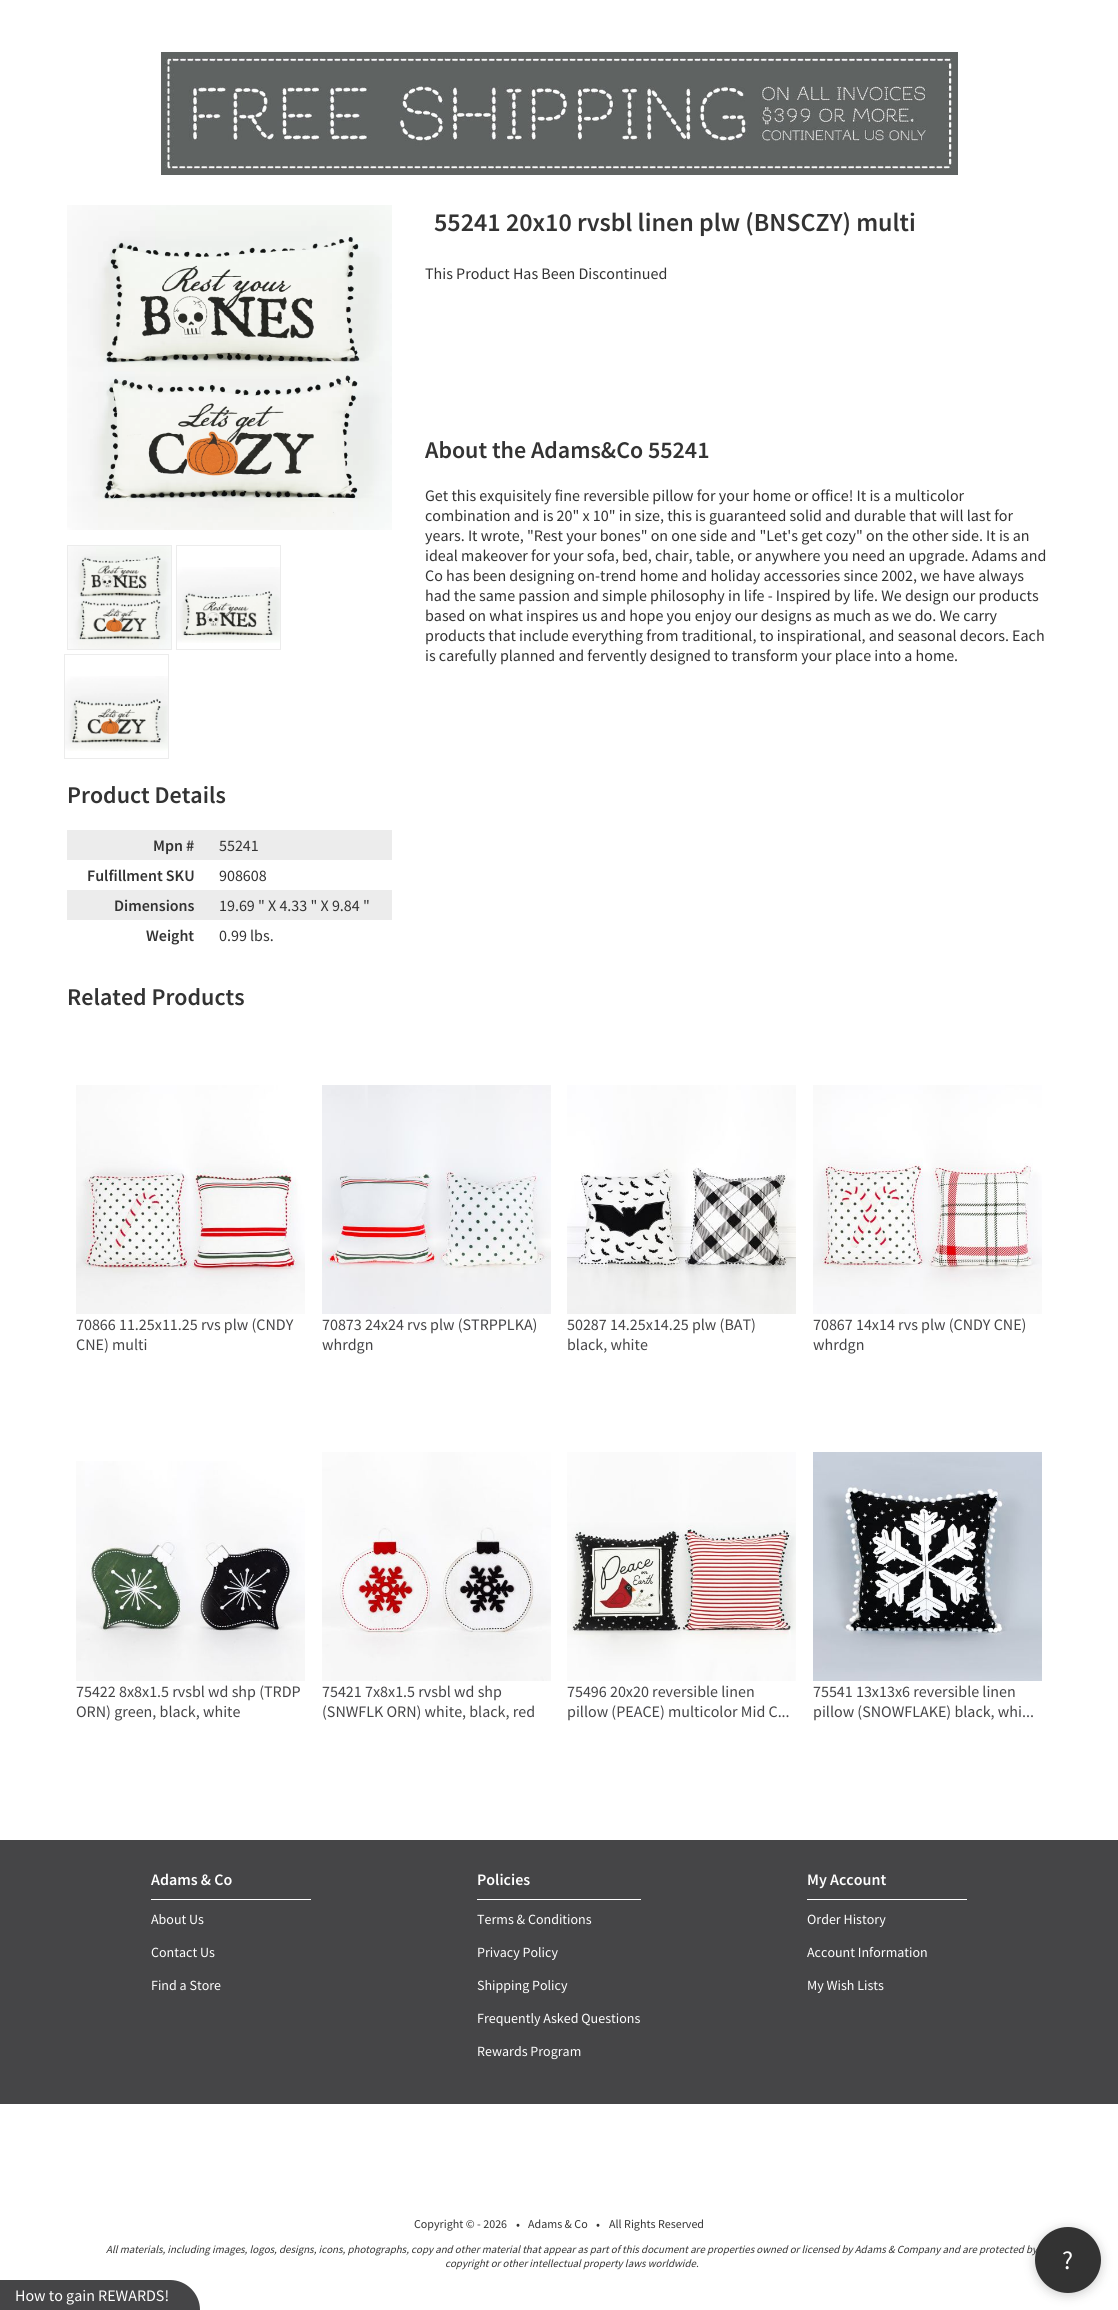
#include <cairo.h>
#include <math.h>
#include <stddef.h>

static cairo_t *ctx;

static void use_color(int r, int g, int b) {
    cairo_set_source_rgb(ctx, r / 255.0, g / 255.0, b / 255.0);
}

static void round_rect(double x, double y, double w, double h, double r) {
    cairo_new_sub_path(ctx);
    cairo_arc(ctx, x + w - r, y + h - r, r, 0, M_PI / 2);
    cairo_arc(ctx, x + r, y + h - r, r, M_PI / 2, M_PI);
    cairo_arc(ctx, x + r, y + r, r, M_PI, 1.5 * M_PI);
    cairo_arc(ctx, x + w - r, y + r, r, 1.5 * M_PI, 2 * M_PI);
    cairo_close_path(ctx);
}

static void shadow(double x, double y, double w, double h, double r, double blur, double alpha) {
    cairo_push_group_with_content(ctx, CAIRO_CONTENT_ALPHA);
    cairo_set_operator(ctx, CAIRO_OPERATOR_SOURCE);
    for (int i = 15; i >= -15 && fmin(w, h) + blur * i / 3 > 0; i -= 2) {
        double e = blur * i / 6;
        cairo_set_source_rgba(ctx, 0, 0, 0, alpha * erfc((i - 1) / 8.5) / 2);
        round_rect(x - e, y - e, w + 2 * e, h + 2 * e, fmax(0, fmin(r + e + blur * .6, fmin(w, h) / 2 + e)));
        cairo_fill(ctx);
    }
    cairo_pattern_t *soft = cairo_pop_group(ctx);
    cairo_mask(ctx, soft);
    cairo_pattern_destroy(soft);
}

static void picture(const char *path, double x, double y, double w, double h) {
    cairo_surface_t *image = cairo_image_surface_create_from_png(path);
    cairo_save(ctx);
    cairo_set_source_surface(ctx, image, x, y);
    cairo_rectangle(ctx, x, y, w, h);
    cairo_fill(ctx);
    cairo_restore(ctx);
    cairo_surface_destroy(image);
}

int main(void) {
    cairo_surface_t *surface = cairo_image_surface_create(CAIRO_FORMAT_RGB24, 1118, 2310);
    ctx = cairo_create(surface);
    cairo_font_options_t *options = cairo_font_options_create();
    cairo_font_options_set_hint_metrics(options, CAIRO_HINT_METRICS_OFF);
    cairo_font_options_set_hint_style(options, CAIRO_HINT_STYLE_NONE);
    cairo_set_font_options(ctx, options);
    cairo_set_miter_limit(ctx, 4);
    use_color(255, 255, 255);
    cairo_paint(ctx);
    picture("img1.png", 161, 52, 797, 123);
    cairo_select_font_face(ctx, "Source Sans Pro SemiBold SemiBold", CAIRO_FONT_SLANT_NORMAL, CAIRO_FONT_WEIGHT_NORMAL);
    cairo_set_font_size(ctx, 26);
    use_color(51, 51, 51);
    cairo_move_to(ctx, 434, 231);
    cairo_show_text(ctx, "55241 20x10 rvsbl linen plw (BNSCZY) multi");
    cairo_select_font_face(ctx, "Source Sans Pro", CAIRO_FONT_SLANT_NORMAL, CAIRO_FONT_WEIGHT_NORMAL);
    cairo_set_font_size(ctx, 16);
    cairo_move_to(ctx, 425, 279);
    cairo_show_text(ctx, "This Product Has Been Discontinued");
    cairo_select_font_face(ctx, "Source Sans Pro SemiBold SemiBold", CAIRO_FONT_SLANT_NORMAL, CAIRO_FONT_WEIGHT_NORMAL);
    cairo_set_font_size(ctx, 24);
    cairo_move_to(ctx, 425, 458);
    cairo_show_text(ctx, "About the Adams&Co 55241");
    cairo_select_font_face(ctx, "Source Sans Pro", CAIRO_FONT_SLANT_NORMAL, CAIRO_FONT_WEIGHT_NORMAL);
    cairo_set_font_size(ctx, 16);
    cairo_move_to(ctx, 425, 501);
    cairo_show_text(ctx, "Get this exquisitely fine reversible pillow for your home or office! It is a multicolor");
    cairo_move_to(ctx, 425, 521);
    cairo_show_text(ctx, "combination and is 20\" x 10\" in size, this is guaranteed solid and durable that will last for");
    cairo_move_to(ctx, 425, 541);
    cairo_show_text(ctx, "years. It wrote, \"Rest your bones\" on one side and \"Let's get cozy\" on the other side. It is an");
    cairo_move_to(ctx, 425, 561);
    cairo_show_text(ctx, "ideal makeover for your sofa, bed, chair, table, or anywhere you need an upgrade. Adams and");
    cairo_move_to(ctx, 425, 581);
    cairo_show_text(ctx, "Co has been designing on-trend home and holiday accessories since 2002, we have always");
    cairo_move_to(ctx, 425, 601);
    cairo_show_text(ctx, "had the same passion and simple philosophy in life - Inspired by life. We design our products");
    cairo_move_to(ctx, 425, 621);
    cairo_show_text(ctx, "based on what inspires us and hope you enjoy our designs as much as we do. We carry");
    cairo_move_to(ctx, 425, 641);
    cairo_show_text(ctx, "products that include everything from traditional, to inspirational, and seasonal decors. Each");
    cairo_move_to(ctx, 425, 661);
    cairo_show_text(ctx, "is carefully planned and fervently designed to transform your place into a home.");
    picture("img2.png", 67, 205, 325, 325);
    cairo_rectangle(ctx, 67.5, 545.5, 104, 104);
    use_color(236, 236, 236);
    cairo_set_line_width(ctx, 1);
    cairo_stroke(ctx);
    cairo_rectangle(ctx, 176.5, 545.5, 104, 104);
    cairo_stroke(ctx);
    picture("img3.png", 68, 546, 103, 103);
    picture("img4.png", 177, 567, 103, 76);
    cairo_rectangle(ctx, 64.5, 654.5, 104, 104);
    cairo_stroke(ctx);
    picture("img5.png", 65, 676, 103, 75);
    cairo_select_font_face(ctx, "Source Sans Pro SemiBold SemiBold", CAIRO_FONT_SLANT_NORMAL, CAIRO_FONT_WEIGHT_NORMAL);
    cairo_set_font_size(ctx, 24);
    use_color(51, 51, 51);
    cairo_move_to(ctx, 67, 803);
    cairo_show_text(ctx, "Product Details");
    use_color(236, 236, 236);
    cairo_rectangle(ctx, 67, 830, 325, 30);
    cairo_fill(ctx);
    cairo_set_font_size(ctx, 16);
    use_color(51, 51, 51);
    cairo_move_to(ctx, 153, 851);
    cairo_show_text(ctx, "Mpn #");
    cairo_select_font_face(ctx, "Source Sans Pro", CAIRO_FONT_SLANT_NORMAL, CAIRO_FONT_WEIGHT_NORMAL);
    cairo_move_to(ctx, 219, 851);
    cairo_show_text(ctx, "55241");
    cairo_select_font_face(ctx, "Source Sans Pro SemiBold SemiBold", CAIRO_FONT_SLANT_NORMAL, CAIRO_FONT_WEIGHT_NORMAL);
    cairo_move_to(ctx, 87, 881);
    cairo_show_text(ctx, "Fulfillment SKU");
    cairo_select_font_face(ctx, "Source Sans Pro", CAIRO_FONT_SLANT_NORMAL, CAIRO_FONT_WEIGHT_NORMAL);
    cairo_move_to(ctx, 219, 881);
    cairo_show_text(ctx, "908608");
    use_color(236, 236, 236);
    cairo_rectangle(ctx, 67, 890, 325, 30);
    cairo_fill(ctx);
    cairo_select_font_face(ctx, "Source Sans Pro SemiBold SemiBold", CAIRO_FONT_SLANT_NORMAL, CAIRO_FONT_WEIGHT_NORMAL);
    use_color(51, 51, 51);
    cairo_move_to(ctx, 114, 911);
    cairo_show_text(ctx, "Dimensions");
    cairo_select_font_face(ctx, "Source Sans Pro", CAIRO_FONT_SLANT_NORMAL, CAIRO_FONT_WEIGHT_NORMAL);
    cairo_move_to(ctx, 219, 911);
    cairo_show_text(ctx, "19.69 \" X 4.33 \" X 9.84 \"");
    cairo_select_font_face(ctx, "Source Sans Pro SemiBold SemiBold", CAIRO_FONT_SLANT_NORMAL, CAIRO_FONT_WEIGHT_NORMAL);
    cairo_move_to(ctx, 146, 941);
    cairo_show_text(ctx, "Weight");
    cairo_select_font_face(ctx, "Source Sans Pro", CAIRO_FONT_SLANT_NORMAL, CAIRO_FONT_WEIGHT_NORMAL);
    cairo_move_to(ctx, 219, 941);
    cairo_show_text(ctx, "0.99 lbs.");
    cairo_select_font_face(ctx, "Source Sans Pro SemiBold SemiBold", CAIRO_FONT_SLANT_NORMAL, CAIRO_FONT_WEIGHT_NORMAL);
    cairo_set_font_size(ctx, 24);
    cairo_move_to(ctx, 67, 1005);
    cairo_show_text(ctx, "Related Products");
    picture("img6.png", 76, 1085, 229, 229);
    cairo_select_font_face(ctx, "Source Sans Pro", CAIRO_FONT_SLANT_NORMAL, CAIRO_FONT_WEIGHT_NORMAL);
    cairo_set_font_size(ctx, 16);
    use_color(69, 69, 71);
    cairo_move_to(ctx, 76, 1330);
    cairo_show_text(ctx, "70866 11.25x11.25 rvs plw (CNDY");
    cairo_move_to(ctx, 76, 1350);
    cairo_show_text(ctx, "CNE) multi");
    picture("img7.png", 322, 1085, 229, 229);
    cairo_move_to(ctx, 322, 1330);
    cairo_show_text(ctx, "70873 24x24 rvs plw (STRPPLKA)");
    cairo_move_to(ctx, 322, 1350);
    cairo_show_text(ctx, "whrdgn");
    picture("img8.png", 567, 1085, 229, 229);
    cairo_move_to(ctx, 567, 1330);
    cairo_show_text(ctx, "50287 14.25x14.25 plw (BAT)");
    cairo_move_to(ctx, 567, 1350);
    cairo_show_text(ctx, "black, white");
    picture("img9.png", 813, 1085, 229, 229);
    cairo_move_to(ctx, 813, 1330);
    cairo_show_text(ctx, "70867 14x14 rvs plw (CNDY CNE)");
    cairo_move_to(ctx, 813, 1350);
    cairo_show_text(ctx, "whrdgn");
    picture("img10.png", 76, 1461, 229, 220);
    cairo_move_to(ctx, 76, 1697);
    cairo_show_text(ctx, "75422 8x8x1.5 rvsbl wd shp (TRDP");
    cairo_move_to(ctx, 76, 1717);
    cairo_show_text(ctx, "ORN) green, black, white");
    picture("img11.png", 322, 1452, 229, 229);
    cairo_move_to(ctx, 322, 1697);
    cairo_show_text(ctx, "75421 7x8x1.5 rvsbl wd shp");
    cairo_move_to(ctx, 322, 1717);
    cairo_show_text(ctx, "(SNWFLK ORN) white, black, red");
    picture("img12.png", 567, 1452, 229, 229);
    cairo_move_to(ctx, 567, 1697);
    cairo_show_text(ctx, "75496 20x20 reversible linen");
    cairo_move_to(ctx, 567, 1717);
    cairo_show_text(ctx, "pillow (PEACE) multicolor Mid C...");
    picture("img13.png", 813, 1452, 229, 229);
    cairo_move_to(ctx, 813, 1697);
    cairo_show_text(ctx, "75541 13x13x6 reversible linen");
    cairo_move_to(ctx, 813, 1717);
    cairo_show_text(ctx, "pillow (SNOWFLAKE) black, whi...");
    cairo_rectangle(ctx, 0, 1840, 1118, 264);
    cairo_fill(ctx);
    use_color(255, 255, 255);
    cairo_rectangle(ctx, 151, 1899, 160, 1);
    cairo_fill(ctx);
    cairo_select_font_face(ctx, "Source Sans Pro SemiBold SemiBold", CAIRO_FONT_SLANT_NORMAL, CAIRO_FONT_WEIGHT_NORMAL);
    cairo_move_to(ctx, 151, 1885);
    cairo_show_text(ctx, "Adams & Co");
    cairo_select_font_face(ctx, "Source Sans Pro", CAIRO_FONT_SLANT_NORMAL, CAIRO_FONT_WEIGHT_NORMAL);
    cairo_set_font_size(ctx, 14);
    cairo_move_to(ctx, 151, 1924);
    cairo_show_text(ctx, "About Us");
    cairo_move_to(ctx, 151, 1957);
    cairo_show_text(ctx, "Contact Us");
    cairo_move_to(ctx, 151, 1990);
    cairo_show_text(ctx, "Find a Store");
    cairo_rectangle(ctx, 477, 1899, 164, 1);
    cairo_fill(ctx);
    cairo_select_font_face(ctx, "Source Sans Pro SemiBold SemiBold", CAIRO_FONT_SLANT_NORMAL, CAIRO_FONT_WEIGHT_NORMAL);
    cairo_set_font_size(ctx, 16);
    cairo_move_to(ctx, 477, 1885);
    cairo_show_text(ctx, "Policies");
    cairo_select_font_face(ctx, "Source Sans Pro", CAIRO_FONT_SLANT_NORMAL, CAIRO_FONT_WEIGHT_NORMAL);
    cairo_set_font_size(ctx, 14);
    cairo_move_to(ctx, 477, 1924);
    cairo_show_text(ctx, "Terms & Conditions");
    cairo_move_to(ctx, 477, 1957);
    cairo_show_text(ctx, "Privacy Policy");
    cairo_move_to(ctx, 477, 1990);
    cairo_show_text(ctx, "Shipping Policy");
    cairo_move_to(ctx, 477, 2023);
    cairo_show_text(ctx, "Frequently Asked Questions");
    cairo_move_to(ctx, 477, 2056);
    cairo_show_text(ctx, "Rewards Program");
    cairo_rectangle(ctx, 807, 1899, 160, 1);
    cairo_fill(ctx);
    cairo_select_font_face(ctx, "Source Sans Pro SemiBold SemiBold", CAIRO_FONT_SLANT_NORMAL, CAIRO_FONT_WEIGHT_NORMAL);
    cairo_set_font_size(ctx, 16);
    cairo_move_to(ctx, 807, 1885);
    cairo_show_text(ctx, "My Account");
    cairo_select_font_face(ctx, "Source Sans Pro", CAIRO_FONT_SLANT_NORMAL, CAIRO_FONT_WEIGHT_NORMAL);
    cairo_set_font_size(ctx, 14);
    cairo_move_to(ctx, 807, 1924);
    cairo_show_text(ctx, "Order History");
    cairo_move_to(ctx, 807, 1957);
    cairo_show_text(ctx, "Account Information");
    cairo_move_to(ctx, 807, 1990);
    cairo_show_text(ctx, "My Wish Lists");
    cairo_set_font_size(ctx, 12);
    use_color(51, 51, 51);
    cairo_move_to(ctx, 414, 2228);
    cairo_show_text(ctx, "Copyright © - 2026");
    cairo_set_font_size(ctx, 24);
    cairo_move_to(ctx, 515, 2233);
    cairo_show_text(ctx, "·");
    cairo_set_font_size(ctx, 12);
    cairo_move_to(ctx, 528, 2228);
    cairo_show_text(ctx, "Adams & Co");
    cairo_set_font_size(ctx, 24);
    cairo_move_to(ctx, 595, 2233);
    cairo_show_text(ctx, "·");
    cairo_set_font_size(ctx, 12);
    cairo_move_to(ctx, 609, 2228);
    cairo_show_text(ctx, "All Rights Reserved");
    cairo_select_font_face(ctx, "Source Sans Pro", CAIRO_FONT_SLANT_ITALIC, CAIRO_FONT_WEIGHT_NORMAL);
    cairo_set_font_size(ctx, 10.88);
    cairo_move_to(ctx, 106, 2253);
    cairo_show_text(ctx, "All materials, including images, logos, designs, icons, photographs, copy and other material that appear as part of this document are properties owned or licensed by Adams & Company and are protected by");
    cairo_move_to(ctx, 445, 2267);
    cairo_show_text(ctx, "copyright or other intellectual property laws worldwide.");
    use_color(0, 0, 0);
    shadow(1035, 2229, 66, 66, 33, 5.5, 0.2);
    use_color(51, 51, 51);
    cairo_arc(ctx, 1068, 2260, 33, 0, 2 * M_PI);
    cairo_fill(ctx);
    cairo_select_font_face(ctx, "Source Sans Pro", CAIRO_FONT_SLANT_NORMAL, CAIRO_FONT_WEIGHT_NORMAL);
    cairo_set_font_size(ctx, 26);
    use_color(255, 255, 255);
    cairo_move_to(ctx, 1062, 2269);
    cairo_show_text(ctx, "?");
    use_color(69, 69, 71);
    cairo_new_path(ctx);
    cairo_move_to(ctx, 0, 2280);
    cairo_line_to(ctx, 170, 2280);
    cairo_curve_to(ctx, 186.5, 2280, 200, 2293.5, 200, 2310);
    cairo_line_to(ctx, 0, 2310);
    cairo_close_path(ctx);
    cairo_fill(ctx);
    cairo_set_font_size(ctx, 16);
    use_color(255, 255, 255);
    cairo_move_to(ctx, 15, 2301);
    cairo_show_text(ctx, "How to gain REWARDS!");
    cairo_surface_write_to_png(surface, "result.png");
    cairo_font_options_destroy(options);
    cairo_destroy(ctx);
    cairo_surface_destroy(surface);
    return 0;
}
